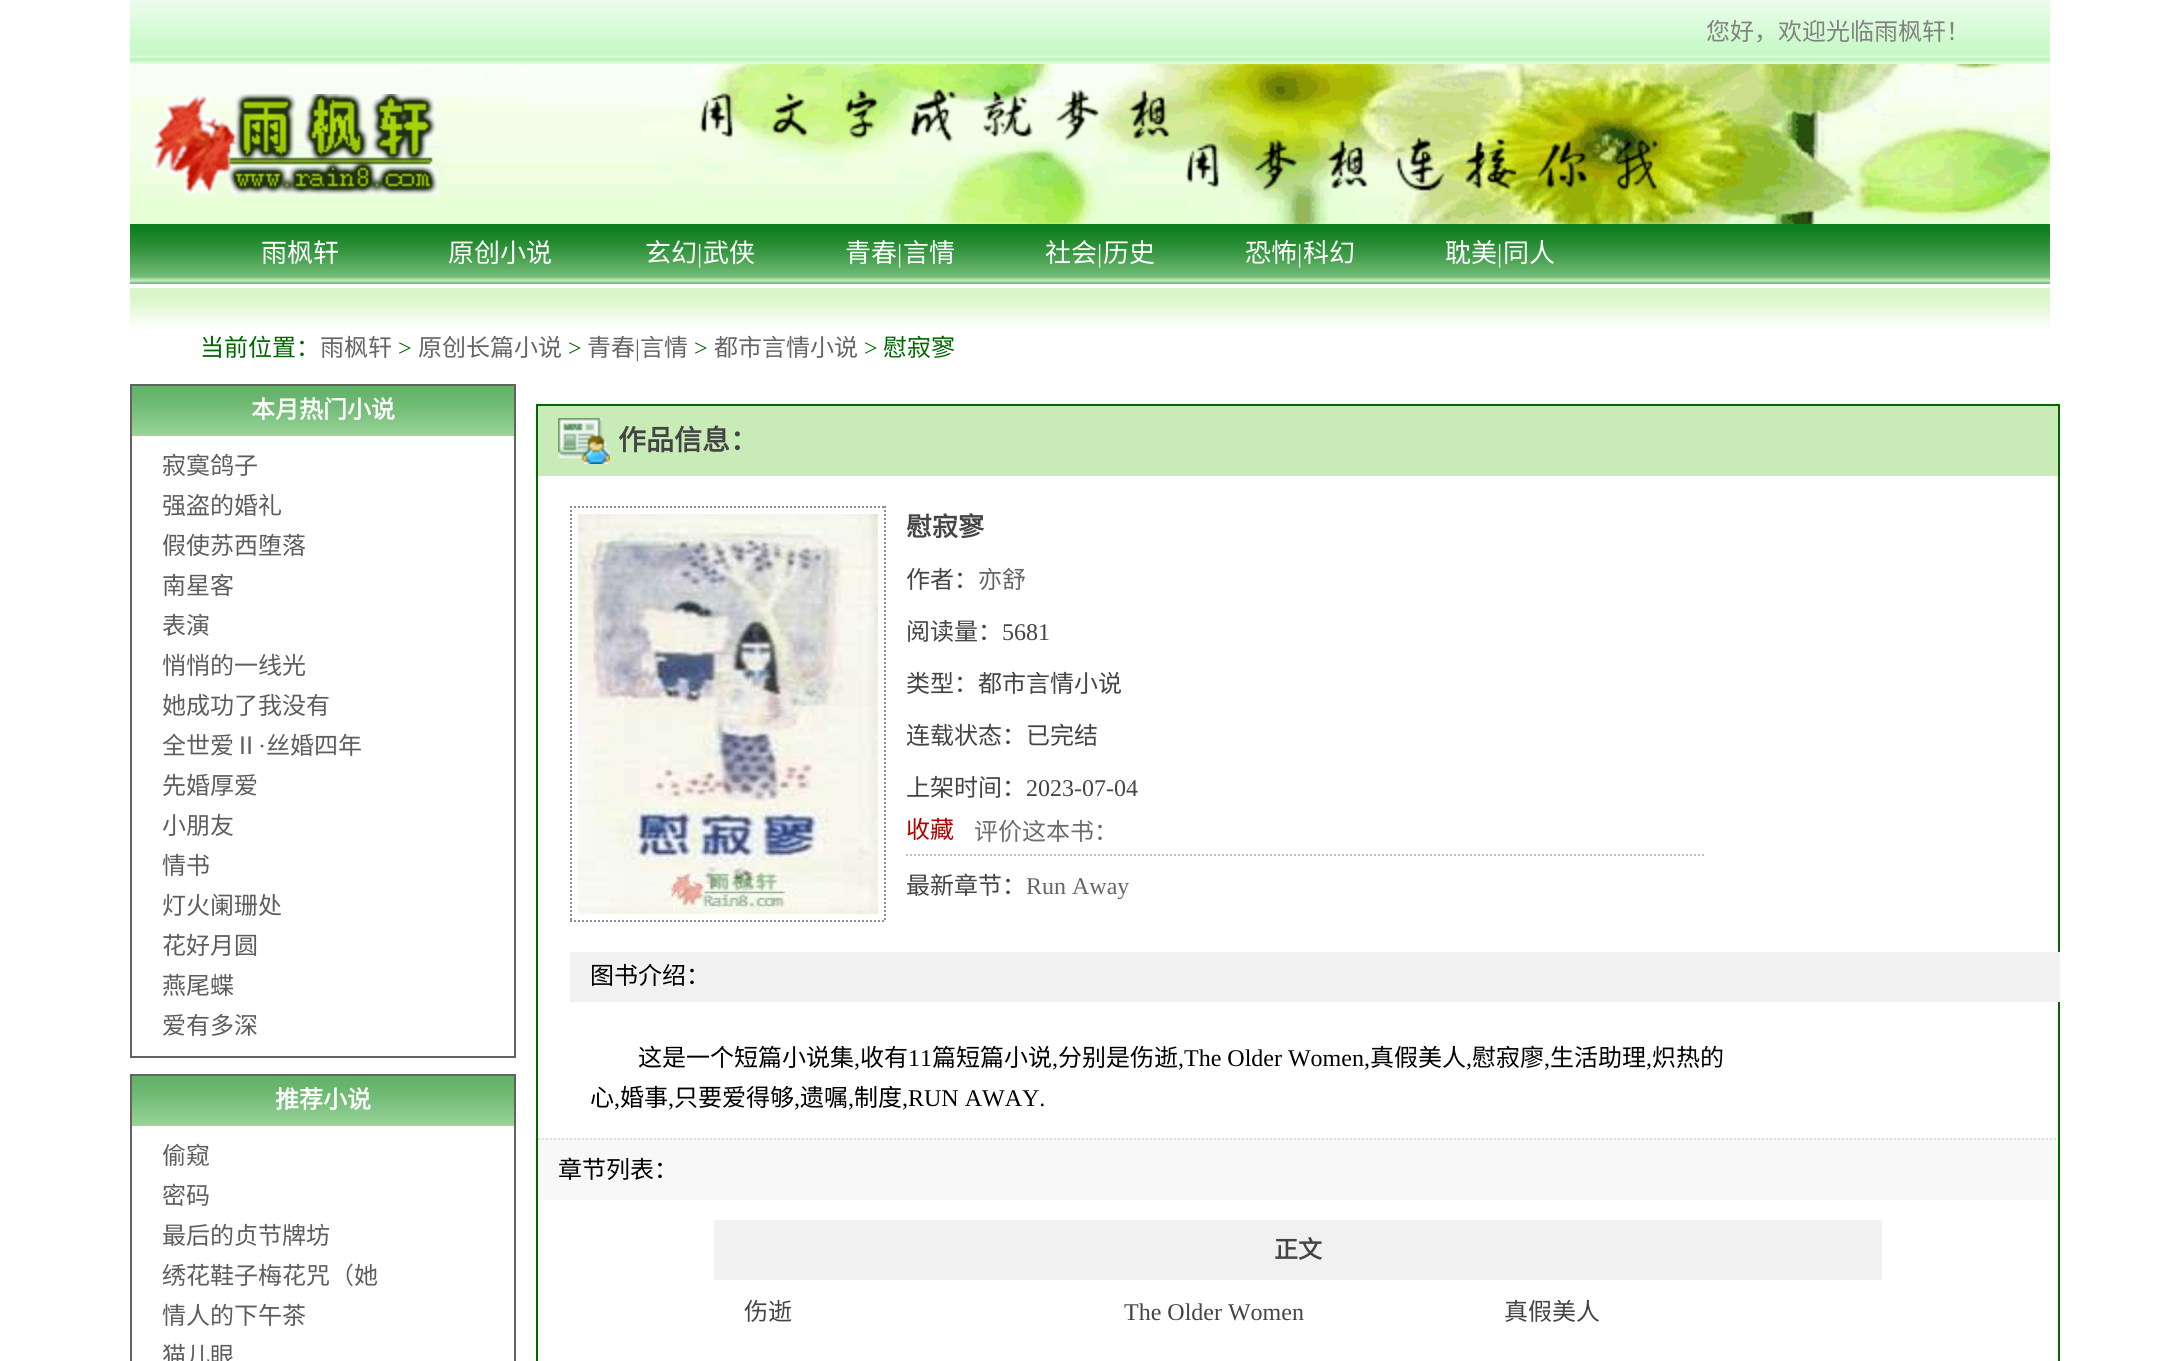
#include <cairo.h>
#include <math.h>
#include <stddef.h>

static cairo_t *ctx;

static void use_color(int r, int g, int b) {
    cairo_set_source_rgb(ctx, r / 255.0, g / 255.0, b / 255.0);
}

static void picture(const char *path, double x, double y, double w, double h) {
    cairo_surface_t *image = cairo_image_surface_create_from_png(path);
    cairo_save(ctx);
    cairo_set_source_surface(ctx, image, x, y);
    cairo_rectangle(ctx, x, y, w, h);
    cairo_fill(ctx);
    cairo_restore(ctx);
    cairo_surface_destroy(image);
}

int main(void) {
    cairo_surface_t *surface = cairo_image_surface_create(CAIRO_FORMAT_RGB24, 2179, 1361);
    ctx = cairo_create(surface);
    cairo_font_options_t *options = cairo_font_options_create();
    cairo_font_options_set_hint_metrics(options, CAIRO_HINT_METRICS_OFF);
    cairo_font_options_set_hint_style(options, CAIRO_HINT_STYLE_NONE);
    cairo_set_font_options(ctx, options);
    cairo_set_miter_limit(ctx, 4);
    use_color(255, 255, 255);
    cairo_paint(ctx);
    picture("img1.png", 130, 0, 1920, 64);
    cairo_select_font_face(ctx, "Noto Sans CJK SC", CAIRO_FONT_SLANT_NORMAL, CAIRO_FONT_WEIGHT_NORMAL);
    cairo_set_font_size(ctx, 24);
    use_color(130, 130, 130);
    cairo_move_to(ctx, 1706, 40);
    cairo_show_text(ctx, "您好，欢迎光临雨枫轩！");
    picture("img2.png", 130, 64, 1920, 160);
    picture("img3.png", 151, 94, 288, 100);
    picture("img4.png", 130, 224, 1920, 60);
    cairo_set_font_size(ctx, 26);
    use_color(255, 255, 255);
    cairo_move_to(ctx, 261, 262);
    cairo_show_text(ctx, "雨枫轩");
    cairo_move_to(ctx, 448, 262);
    cairo_show_text(ctx, "原创小说");
    cairo_move_to(ctx, 645, 262);
    cairo_show_text(ctx, "玄幻");
    cairo_select_font_face(ctx, "Liberation Serif", CAIRO_FONT_SLANT_NORMAL, CAIRO_FONT_WEIGHT_NORMAL);
    cairo_move_to(ctx, 697, 262);
    cairo_show_text(ctx, "|");
    cairo_select_font_face(ctx, "Noto Sans CJK SC", CAIRO_FONT_SLANT_NORMAL, CAIRO_FONT_WEIGHT_NORMAL);
    cairo_move_to(ctx, 703, 262);
    cairo_show_text(ctx, "武侠");
    cairo_move_to(ctx, 845, 262);
    cairo_show_text(ctx, "青春");
    cairo_select_font_face(ctx, "Liberation Serif", CAIRO_FONT_SLANT_NORMAL, CAIRO_FONT_WEIGHT_NORMAL);
    cairo_move_to(ctx, 897, 262);
    cairo_show_text(ctx, "|");
    cairo_select_font_face(ctx, "Noto Sans CJK SC", CAIRO_FONT_SLANT_NORMAL, CAIRO_FONT_WEIGHT_NORMAL);
    cairo_move_to(ctx, 903, 262);
    cairo_show_text(ctx, "言情");
    cairo_move_to(ctx, 1045, 262);
    cairo_show_text(ctx, "社会");
    cairo_select_font_face(ctx, "Liberation Serif", CAIRO_FONT_SLANT_NORMAL, CAIRO_FONT_WEIGHT_NORMAL);
    cairo_move_to(ctx, 1097, 262);
    cairo_show_text(ctx, "|");
    cairo_select_font_face(ctx, "Noto Sans CJK SC", CAIRO_FONT_SLANT_NORMAL, CAIRO_FONT_WEIGHT_NORMAL);
    cairo_move_to(ctx, 1103, 262);
    cairo_show_text(ctx, "历史");
    cairo_move_to(ctx, 1245, 262);
    cairo_show_text(ctx, "恐怖");
    cairo_select_font_face(ctx, "Liberation Serif", CAIRO_FONT_SLANT_NORMAL, CAIRO_FONT_WEIGHT_NORMAL);
    cairo_move_to(ctx, 1297, 262);
    cairo_show_text(ctx, "|");
    cairo_select_font_face(ctx, "Noto Sans CJK SC", CAIRO_FONT_SLANT_NORMAL, CAIRO_FONT_WEIGHT_NORMAL);
    cairo_move_to(ctx, 1303, 262);
    cairo_show_text(ctx, "科幻");
    cairo_move_to(ctx, 1445, 262);
    cairo_show_text(ctx, "耽美");
    cairo_select_font_face(ctx, "Liberation Serif", CAIRO_FONT_SLANT_NORMAL, CAIRO_FONT_WEIGHT_NORMAL);
    cairo_move_to(ctx, 1497, 262);
    cairo_show_text(ctx, "|");
    cairo_select_font_face(ctx, "Noto Sans CJK SC", CAIRO_FONT_SLANT_NORMAL, CAIRO_FONT_WEIGHT_NORMAL);
    cairo_move_to(ctx, 1503, 262);
    cairo_show_text(ctx, "同人");
    picture("img5.png", 130, 288, 1920, 39);
    cairo_set_font_size(ctx, 24);
    use_color(0, 102, 0);
    cairo_move_to(ctx, 200, 356);
    cairo_show_text(ctx, "当前位置：");
    use_color(102, 102, 102);
    cairo_move_to(ctx, 320, 356);
    cairo_show_text(ctx, "雨枫轩");
    cairo_select_font_face(ctx, "Liberation Serif", CAIRO_FONT_SLANT_NORMAL, CAIRO_FONT_WEIGHT_NORMAL);
    use_color(0, 102, 0);
    cairo_move_to(ctx, 398, 356);
    cairo_show_text(ctx, ">");
    cairo_select_font_face(ctx, "Noto Sans CJK SC", CAIRO_FONT_SLANT_NORMAL, CAIRO_FONT_WEIGHT_NORMAL);
    use_color(102, 102, 102);
    cairo_move_to(ctx, 418, 356);
    cairo_show_text(ctx, "原创长篇小说");
    cairo_select_font_face(ctx, "Liberation Serif", CAIRO_FONT_SLANT_NORMAL, CAIRO_FONT_WEIGHT_NORMAL);
    use_color(0, 102, 0);
    cairo_move_to(ctx, 568, 356);
    cairo_show_text(ctx, ">");
    cairo_select_font_face(ctx, "Noto Sans CJK SC", CAIRO_FONT_SLANT_NORMAL, CAIRO_FONT_WEIGHT_NORMAL);
    use_color(102, 102, 102);
    cairo_move_to(ctx, 587, 356);
    cairo_show_text(ctx, "青春");
    cairo_select_font_face(ctx, "Liberation Serif", CAIRO_FONT_SLANT_NORMAL, CAIRO_FONT_WEIGHT_NORMAL);
    cairo_move_to(ctx, 635, 356);
    cairo_show_text(ctx, "|");
    cairo_select_font_face(ctx, "Noto Sans CJK SC", CAIRO_FONT_SLANT_NORMAL, CAIRO_FONT_WEIGHT_NORMAL);
    cairo_move_to(ctx, 640, 356);
    cairo_show_text(ctx, "言情");
    cairo_select_font_face(ctx, "Liberation Serif", CAIRO_FONT_SLANT_NORMAL, CAIRO_FONT_WEIGHT_NORMAL);
    use_color(0, 102, 0);
    cairo_move_to(ctx, 694, 356);
    cairo_show_text(ctx, ">");
    cairo_select_font_face(ctx, "Noto Sans CJK SC", CAIRO_FONT_SLANT_NORMAL, CAIRO_FONT_WEIGHT_NORMAL);
    use_color(102, 102, 102);
    cairo_move_to(ctx, 714, 356);
    cairo_show_text(ctx, "都市言情小说");
    cairo_select_font_face(ctx, "Liberation Serif", CAIRO_FONT_SLANT_NORMAL, CAIRO_FONT_WEIGHT_NORMAL);
    use_color(0, 102, 0);
    cairo_move_to(ctx, 864, 356);
    cairo_show_text(ctx, ">");
    cairo_select_font_face(ctx, "Noto Sans CJK SC", CAIRO_FONT_SLANT_NORMAL, CAIRO_FONT_WEIGHT_NORMAL);
    cairo_move_to(ctx, 883, 356);
    cairo_show_text(ctx, "慰寂寥");
    cairo_rectangle(ctx, 131, 385, 384, 672);
    use_color(98, 98, 98);
    cairo_stroke(ctx);
    picture("img6.png", 132, 386, 382, 50);
    cairo_select_font_face(ctx, "Noto Sans CJK SC", CAIRO_FONT_SLANT_NORMAL, CAIRO_FONT_WEIGHT_BOLD);
    use_color(255, 255, 255);
    cairo_move_to(ctx, 251, 418);
    cairo_show_text(ctx, "本月热门小说");
    cairo_select_font_face(ctx, "Noto Sans CJK SC", CAIRO_FONT_SLANT_NORMAL, CAIRO_FONT_WEIGHT_NORMAL);
    use_color(93, 93, 93);
    cairo_move_to(ctx, 162, 474);
    cairo_show_text(ctx, "寂寞鸽子");
    cairo_move_to(ctx, 162, 514);
    cairo_show_text(ctx, "强盗的婚礼");
    cairo_move_to(ctx, 162, 554);
    cairo_show_text(ctx, "假使苏西堕落");
    cairo_move_to(ctx, 162, 594);
    cairo_show_text(ctx, "南星客");
    cairo_move_to(ctx, 162, 634);
    cairo_show_text(ctx, "表演");
    cairo_move_to(ctx, 162, 674);
    cairo_show_text(ctx, "悄悄的一线光");
    cairo_move_to(ctx, 162, 714);
    cairo_show_text(ctx, "她成功了我没有");
    cairo_move_to(ctx, 162, 754);
    cairo_show_text(ctx, "全世爱Ⅱ");
    cairo_select_font_face(ctx, "Liberation Serif", CAIRO_FONT_SLANT_NORMAL, CAIRO_FONT_WEIGHT_NORMAL);
    cairo_move_to(ctx, 258, 754);
    cairo_show_text(ctx, "·");
    cairo_select_font_face(ctx, "Noto Sans CJK SC", CAIRO_FONT_SLANT_NORMAL, CAIRO_FONT_WEIGHT_NORMAL);
    cairo_move_to(ctx, 266, 754);
    cairo_show_text(ctx, "丝婚四年");
    cairo_move_to(ctx, 162, 794);
    cairo_show_text(ctx, "先婚厚爱");
    cairo_move_to(ctx, 162, 834);
    cairo_show_text(ctx, "小朋友");
    cairo_move_to(ctx, 162, 874);
    cairo_show_text(ctx, "情书");
    cairo_move_to(ctx, 162, 914);
    cairo_show_text(ctx, "灯火阑珊处");
    cairo_move_to(ctx, 162, 954);
    cairo_show_text(ctx, "花好月圆");
    cairo_move_to(ctx, 162, 994);
    cairo_show_text(ctx, "燕尾蝶");
    cairo_move_to(ctx, 162, 1034);
    cairo_show_text(ctx, "爱有多深");
    cairo_rectangle(ctx, 131, 1075, 384, 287);
    use_color(98, 98, 98);
    cairo_stroke(ctx);
    picture("img6.png", 132, 1076, 382, 50);
    cairo_select_font_face(ctx, "Noto Sans CJK SC", CAIRO_FONT_SLANT_NORMAL, CAIRO_FONT_WEIGHT_BOLD);
    use_color(255, 255, 255);
    cairo_move_to(ctx, 275, 1108);
    cairo_show_text(ctx, "推荐小说");
    cairo_select_font_face(ctx, "Noto Sans CJK SC", CAIRO_FONT_SLANT_NORMAL, CAIRO_FONT_WEIGHT_NORMAL);
    use_color(93, 93, 93);
    cairo_move_to(ctx, 162, 1164);
    cairo_show_text(ctx, "偷窥");
    cairo_move_to(ctx, 162, 1204);
    cairo_show_text(ctx, "密码");
    cairo_move_to(ctx, 162, 1244);
    cairo_show_text(ctx, "最后的贞节牌坊");
    cairo_move_to(ctx, 162, 1284);
    cairo_show_text(ctx, "绣花鞋子梅花咒（她");
    cairo_move_to(ctx, 162, 1324);
    cairo_show_text(ctx, "情人的下午茶");
    cairo_move_to(ctx, 162, 1364);
    cairo_show_text(ctx, "猫儿眼");
    cairo_rectangle(ctx, 537, 405, 1522, 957);
    use_color(0, 102, 0);
    cairo_stroke(ctx);
    use_color(201, 235, 184);
    cairo_rectangle(ctx, 538, 406, 1520, 70);
    cairo_fill(ctx);
    picture("img7.png", 558, 418, 52, 46);
    cairo_select_font_face(ctx, "Noto Sans CJK SC", CAIRO_FONT_SLANT_NORMAL, CAIRO_FONT_WEIGHT_BOLD);
    cairo_set_font_size(ctx, 28);
    use_color(68, 68, 68);
    cairo_move_to(ctx, 618, 450);
    cairo_show_text(ctx, "作品信息：");
    cairo_new_path(ctx);
    cairo_move_to(ctx, 570, 507);
    cairo_line_to(ctx, 886, 507);
    use_color(143, 143, 143);
    cairo_set_dash(ctx, (double[]){2, 2}, 2, 0);
    cairo_stroke(ctx);
    cairo_new_path(ctx);
    cairo_move_to(ctx, 885, 506);
    cairo_line_to(ctx, 885, 922);
    cairo_stroke(ctx);
    cairo_new_path(ctx);
    cairo_move_to(ctx, 570, 921);
    cairo_line_to(ctx, 886, 921);
    cairo_stroke(ctx);
    cairo_new_path(ctx);
    cairo_move_to(ctx, 571, 506);
    cairo_line_to(ctx, 571, 922);
    cairo_stroke(ctx);
    picture("img8.png", 578, 514, 300, 400);
    cairo_set_font_size(ctx, 26);
    use_color(68, 68, 68);
    cairo_move_to(ctx, 906, 536);
    cairo_show_text(ctx, "慰寂寥");
    cairo_select_font_face(ctx, "Noto Sans CJK SC", CAIRO_FONT_SLANT_NORMAL, CAIRO_FONT_WEIGHT_NORMAL);
    cairo_set_font_size(ctx, 24);
    cairo_move_to(ctx, 906, 588);
    cairo_show_text(ctx, "作者：");
    use_color(102, 102, 102);
    cairo_move_to(ctx, 978, 588);
    cairo_show_text(ctx, "亦舒");
    use_color(68, 68, 68);
    cairo_move_to(ctx, 906, 640);
    cairo_show_text(ctx, "阅读量：");
    cairo_select_font_face(ctx, "Liberation Serif", CAIRO_FONT_SLANT_NORMAL, CAIRO_FONT_WEIGHT_NORMAL);
    cairo_move_to(ctx, 1002, 640);
    cairo_show_text(ctx, "5681");
    cairo_select_font_face(ctx, "Noto Sans CJK SC", CAIRO_FONT_SLANT_NORMAL, CAIRO_FONT_WEIGHT_NORMAL);
    cairo_move_to(ctx, 906, 692);
    cairo_show_text(ctx, "类型：都市言情小说");
    cairo_move_to(ctx, 906, 744);
    cairo_show_text(ctx, "连载状态：已完结");
    cairo_move_to(ctx, 906, 796);
    cairo_show_text(ctx, "上架时间：");
    cairo_select_font_face(ctx, "Liberation Serif", CAIRO_FONT_SLANT_NORMAL, CAIRO_FONT_WEIGHT_NORMAL);
    cairo_move_to(ctx, 1026, 796);
    cairo_show_text(ctx, "2023-07-04");
    cairo_select_font_face(ctx, "Noto Sans CJK SC", CAIRO_FONT_SLANT_NORMAL, CAIRO_FONT_WEIGHT_NORMAL);
    use_color(183, 0, 0);
    cairo_move_to(ctx, 906, 838);
    cairo_show_text(ctx, "收藏");
    use_color(109, 109, 109);
    cairo_move_to(ctx, 974, 840);
    cairo_show_text(ctx, "评价这本书：");
    cairo_new_path(ctx);
    cairo_move_to(ctx, 906, 855);
    cairo_line_to(ctx, 1706, 855);
    use_color(190, 190, 190);
    cairo_stroke(ctx);
    use_color(68, 68, 68);
    cairo_move_to(ctx, 906, 894);
    cairo_show_text(ctx, "最新章节：");
    cairo_select_font_face(ctx, "Liberation Serif", CAIRO_FONT_SLANT_NORMAL, CAIRO_FONT_WEIGHT_NORMAL);
    use_color(102, 102, 102);
    cairo_move_to(ctx, 1026, 894);
    cairo_show_text(ctx, "Run Away");
    use_color(241, 241, 241);
    cairo_rectangle(ctx, 570, 952, 1490, 50);
    cairo_fill(ctx);
    cairo_select_font_face(ctx, "Noto Sans CJK SC", CAIRO_FONT_SLANT_NORMAL, CAIRO_FONT_WEIGHT_NORMAL);
    use_color(0, 0, 0);
    cairo_move_to(ctx, 590, 984);
    cairo_show_text(ctx, "图书介绍：");
    cairo_move_to(ctx, 638, 1066);
    cairo_show_text(ctx, "这是一个短篇小说集");
    cairo_select_font_face(ctx, "Liberation Serif", CAIRO_FONT_SLANT_NORMAL, CAIRO_FONT_WEIGHT_NORMAL);
    cairo_move_to(ctx, 854, 1066);
    cairo_show_text(ctx, ",");
    cairo_select_font_face(ctx, "Noto Sans CJK SC", CAIRO_FONT_SLANT_NORMAL, CAIRO_FONT_WEIGHT_NORMAL);
    cairo_move_to(ctx, 860, 1066);
    cairo_show_text(ctx, "收有");
    cairo_select_font_face(ctx, "Liberation Serif", CAIRO_FONT_SLANT_NORMAL, CAIRO_FONT_WEIGHT_NORMAL);
    cairo_move_to(ctx, 908, 1066);
    cairo_show_text(ctx, "11");
    cairo_select_font_face(ctx, "Noto Sans CJK SC", CAIRO_FONT_SLANT_NORMAL, CAIRO_FONT_WEIGHT_NORMAL);
    cairo_move_to(ctx, 932, 1066);
    cairo_show_text(ctx, "篇短篇小说");
    cairo_select_font_face(ctx, "Liberation Serif", CAIRO_FONT_SLANT_NORMAL, CAIRO_FONT_WEIGHT_NORMAL);
    cairo_move_to(ctx, 1052, 1066);
    cairo_show_text(ctx, ",");
    cairo_select_font_face(ctx, "Noto Sans CJK SC", CAIRO_FONT_SLANT_NORMAL, CAIRO_FONT_WEIGHT_NORMAL);
    cairo_move_to(ctx, 1058, 1066);
    cairo_show_text(ctx, "分别是伤逝");
    cairo_select_font_face(ctx, "Liberation Serif", CAIRO_FONT_SLANT_NORMAL, CAIRO_FONT_WEIGHT_NORMAL);
    cairo_move_to(ctx, 1178, 1066);
    cairo_show_text(ctx, ",The Older Women,");
    cairo_select_font_face(ctx, "Noto Sans CJK SC", CAIRO_FONT_SLANT_NORMAL, CAIRO_FONT_WEIGHT_NORMAL);
    cairo_move_to(ctx, 1370, 1066);
    cairo_show_text(ctx, "真假美人");
    cairo_select_font_face(ctx, "Liberation Serif", CAIRO_FONT_SLANT_NORMAL, CAIRO_FONT_WEIGHT_NORMAL);
    cairo_move_to(ctx, 1466, 1066);
    cairo_show_text(ctx, ",");
    cairo_select_font_face(ctx, "Noto Sans CJK SC", CAIRO_FONT_SLANT_NORMAL, CAIRO_FONT_WEIGHT_NORMAL);
    cairo_move_to(ctx, 1472, 1066);
    cairo_show_text(ctx, "慰寂廖");
    cairo_select_font_face(ctx, "Liberation Serif", CAIRO_FONT_SLANT_NORMAL, CAIRO_FONT_WEIGHT_NORMAL);
    cairo_move_to(ctx, 1544, 1066);
    cairo_show_text(ctx, ",");
    cairo_select_font_face(ctx, "Noto Sans CJK SC", CAIRO_FONT_SLANT_NORMAL, CAIRO_FONT_WEIGHT_NORMAL);
    cairo_move_to(ctx, 1550, 1066);
    cairo_show_text(ctx, "生活助理");
    cairo_select_font_face(ctx, "Liberation Serif", CAIRO_FONT_SLANT_NORMAL, CAIRO_FONT_WEIGHT_NORMAL);
    cairo_move_to(ctx, 1646, 1066);
    cairo_show_text(ctx, ",");
    cairo_select_font_face(ctx, "Noto Sans CJK SC", CAIRO_FONT_SLANT_NORMAL, CAIRO_FONT_WEIGHT_NORMAL);
    cairo_move_to(ctx, 1652, 1066);
    cairo_show_text(ctx, "炽热的");
    cairo_move_to(ctx, 590, 1106);
    cairo_show_text(ctx, "心");
    cairo_select_font_face(ctx, "Liberation Serif", CAIRO_FONT_SLANT_NORMAL, CAIRO_FONT_WEIGHT_NORMAL);
    cairo_move_to(ctx, 614, 1106);
    cairo_show_text(ctx, ",");
    cairo_select_font_face(ctx, "Noto Sans CJK SC", CAIRO_FONT_SLANT_NORMAL, CAIRO_FONT_WEIGHT_NORMAL);
    cairo_move_to(ctx, 620, 1106);
    cairo_show_text(ctx, "婚事");
    cairo_select_font_face(ctx, "Liberation Serif", CAIRO_FONT_SLANT_NORMAL, CAIRO_FONT_WEIGHT_NORMAL);
    cairo_move_to(ctx, 668, 1106);
    cairo_show_text(ctx, ",");
    cairo_select_font_face(ctx, "Noto Sans CJK SC", CAIRO_FONT_SLANT_NORMAL, CAIRO_FONT_WEIGHT_NORMAL);
    cairo_move_to(ctx, 674, 1106);
    cairo_show_text(ctx, "只要爱得够");
    cairo_select_font_face(ctx, "Liberation Serif", CAIRO_FONT_SLANT_NORMAL, CAIRO_FONT_WEIGHT_NORMAL);
    cairo_move_to(ctx, 794, 1106);
    cairo_show_text(ctx, ",");
    cairo_select_font_face(ctx, "Noto Sans CJK SC", CAIRO_FONT_SLANT_NORMAL, CAIRO_FONT_WEIGHT_NORMAL);
    cairo_move_to(ctx, 800, 1106);
    cairo_show_text(ctx, "遗嘱");
    cairo_select_font_face(ctx, "Liberation Serif", CAIRO_FONT_SLANT_NORMAL, CAIRO_FONT_WEIGHT_NORMAL);
    cairo_move_to(ctx, 848, 1106);
    cairo_show_text(ctx, ",");
    cairo_select_font_face(ctx, "Noto Sans CJK SC", CAIRO_FONT_SLANT_NORMAL, CAIRO_FONT_WEIGHT_NORMAL);
    cairo_move_to(ctx, 854, 1106);
    cairo_show_text(ctx, "制度");
    cairo_select_font_face(ctx, "Liberation Serif", CAIRO_FONT_SLANT_NORMAL, CAIRO_FONT_WEIGHT_NORMAL);
    cairo_move_to(ctx, 902, 1106);
    cairo_show_text(ctx, ",RUN AWAY.");
    use_color(248, 248, 248);
    cairo_rectangle(ctx, 538, 1138, 1520, 62);
    cairo_fill(ctx);
    cairo_new_path(ctx);
    cairo_move_to(ctx, 538, 1139);
    cairo_line_to(ctx, 2058, 1139);
    use_color(223, 223, 223);
    cairo_stroke(ctx);
    cairo_select_font_face(ctx, "Noto Sans CJK SC", CAIRO_FONT_SLANT_NORMAL, CAIRO_FONT_WEIGHT_NORMAL);
    use_color(0, 0, 0);
    cairo_move_to(ctx, 558, 1178);
    cairo_show_text(ctx, "章节列表：");
    use_color(241, 241, 241);
    cairo_rectangle(ctx, 714, 1220, 1168, 60);
    cairo_fill(ctx);
    cairo_select_font_face(ctx, "Noto Sans CJK SC", CAIRO_FONT_SLANT_NORMAL, CAIRO_FONT_WEIGHT_BOLD);
    use_color(68, 68, 68);
    cairo_move_to(ctx, 1274, 1258);
    cairo_show_text(ctx, "正文");
    cairo_select_font_face(ctx, "Noto Sans CJK SC", CAIRO_FONT_SLANT_NORMAL, CAIRO_FONT_WEIGHT_NORMAL);
    cairo_move_to(ctx, 744, 1320);
    cairo_show_text(ctx, "伤逝");
    cairo_select_font_face(ctx, "Liberation Serif", CAIRO_FONT_SLANT_NORMAL, CAIRO_FONT_WEIGHT_NORMAL);
    cairo_move_to(ctx, 1124, 1320);
    cairo_show_text(ctx, "The Older Women");
    cairo_select_font_face(ctx, "Noto Sans CJK SC", CAIRO_FONT_SLANT_NORMAL, CAIRO_FONT_WEIGHT_NORMAL);
    cairo_move_to(ctx, 1504, 1320);
    cairo_show_text(ctx, "真假美人");
    cairo_surface_write_to_png(surface, "result.png");
    cairo_font_options_destroy(options);
    cairo_destroy(ctx);
    cairo_surface_destroy(surface);
    return 0;
}
